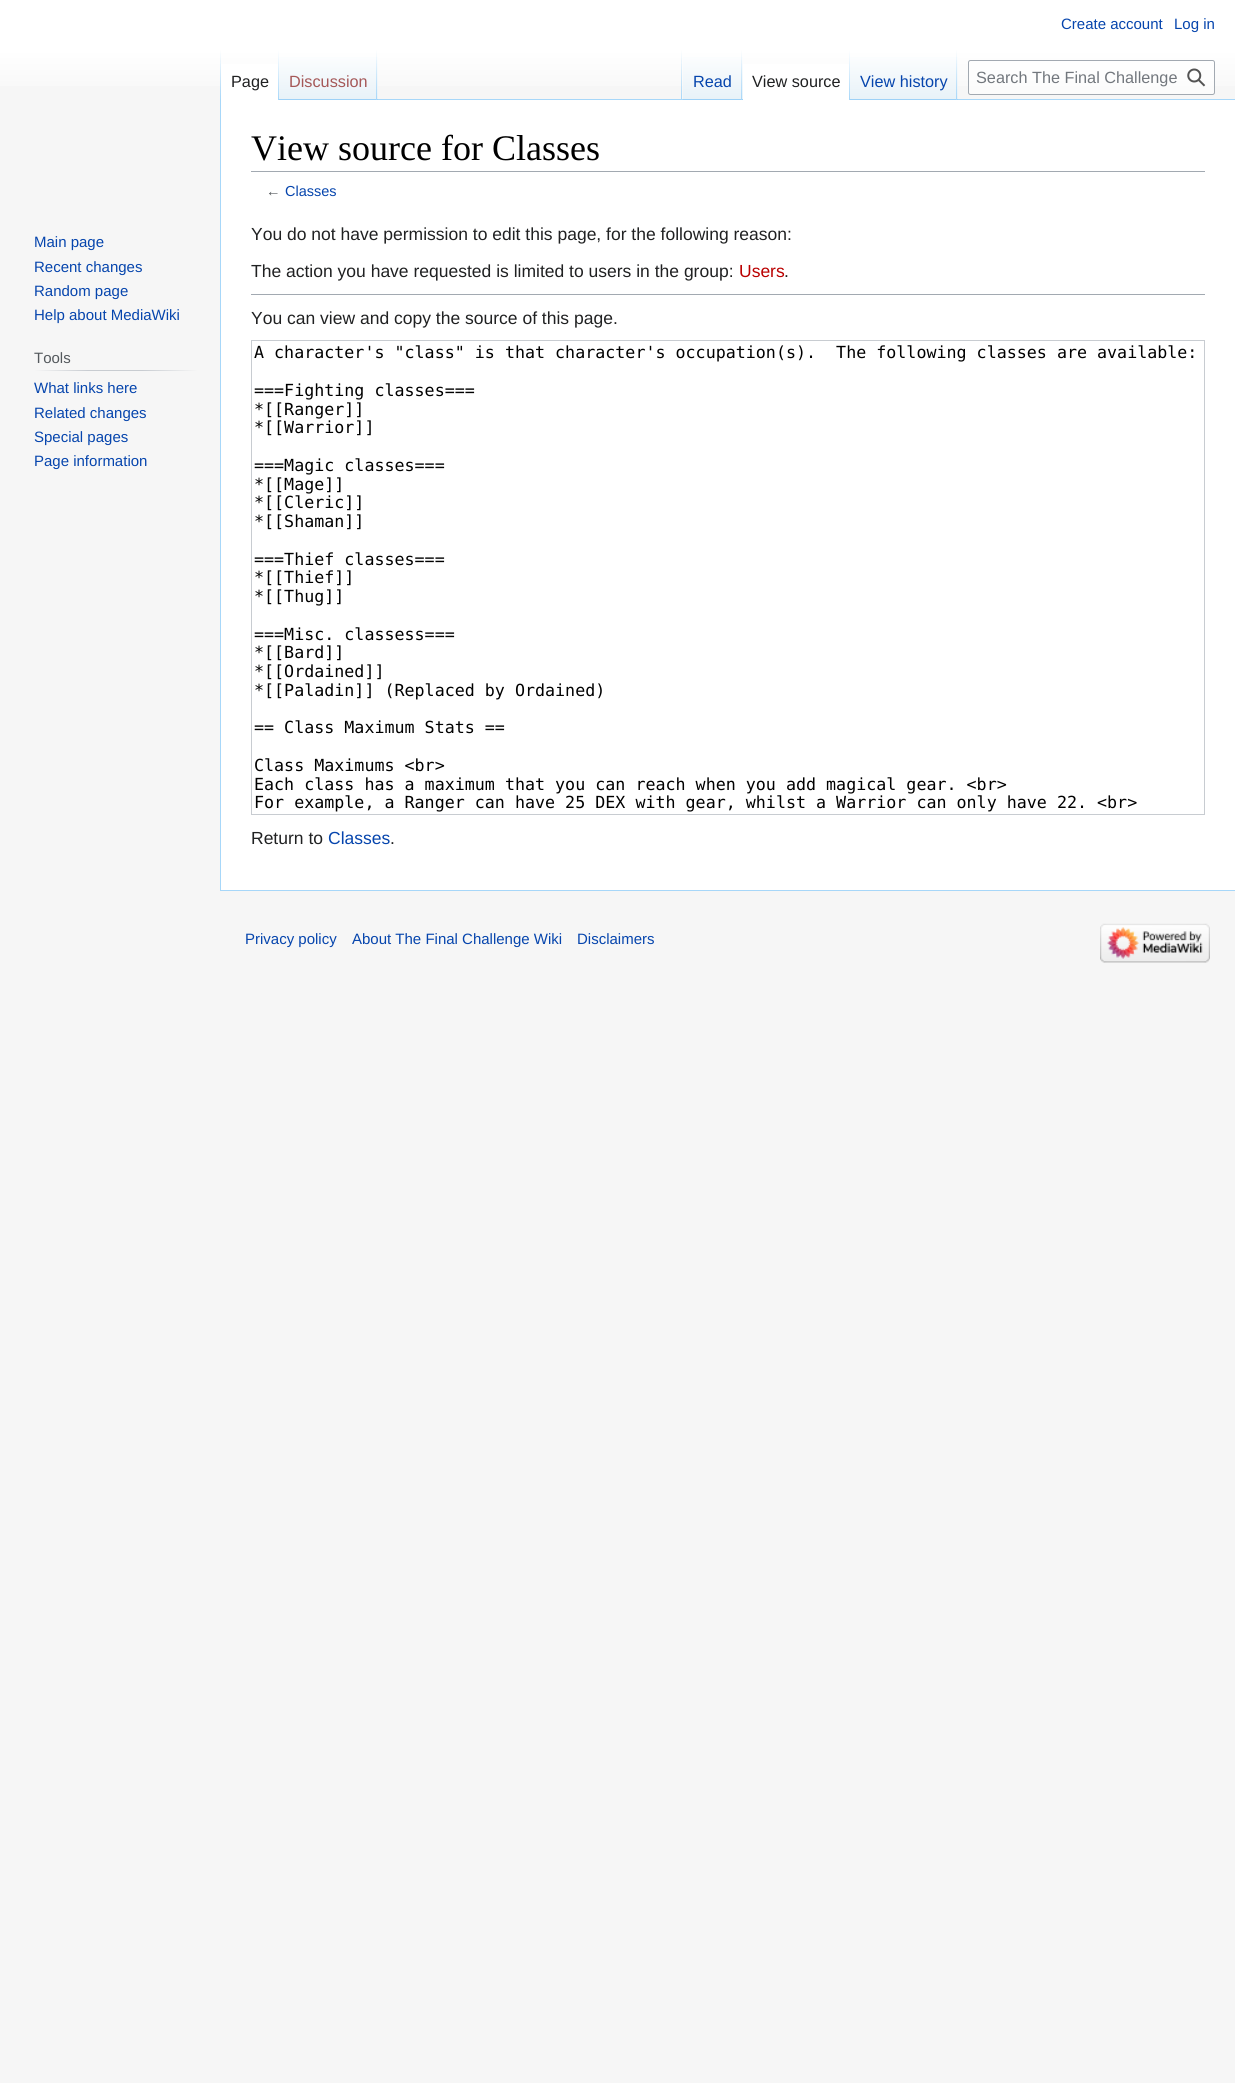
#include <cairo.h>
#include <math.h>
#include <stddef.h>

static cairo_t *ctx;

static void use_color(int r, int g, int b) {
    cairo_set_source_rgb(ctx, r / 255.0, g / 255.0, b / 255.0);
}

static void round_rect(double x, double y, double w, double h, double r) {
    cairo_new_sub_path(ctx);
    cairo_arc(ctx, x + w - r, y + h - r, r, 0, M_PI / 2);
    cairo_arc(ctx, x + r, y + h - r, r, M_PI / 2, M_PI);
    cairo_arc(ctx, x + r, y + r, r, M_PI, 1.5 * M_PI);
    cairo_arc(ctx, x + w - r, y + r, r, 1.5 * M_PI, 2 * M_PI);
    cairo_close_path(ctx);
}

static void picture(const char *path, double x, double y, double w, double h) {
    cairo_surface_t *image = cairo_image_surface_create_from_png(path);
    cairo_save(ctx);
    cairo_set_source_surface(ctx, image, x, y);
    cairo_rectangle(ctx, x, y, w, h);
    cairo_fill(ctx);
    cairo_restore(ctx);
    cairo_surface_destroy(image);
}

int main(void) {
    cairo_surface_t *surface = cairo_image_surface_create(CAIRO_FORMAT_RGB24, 1235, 2083);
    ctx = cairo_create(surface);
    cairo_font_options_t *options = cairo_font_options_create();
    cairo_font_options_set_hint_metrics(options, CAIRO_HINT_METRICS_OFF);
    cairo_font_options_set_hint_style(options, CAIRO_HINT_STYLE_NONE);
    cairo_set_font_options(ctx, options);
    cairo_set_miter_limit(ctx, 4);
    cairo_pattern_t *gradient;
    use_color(246, 246, 246);
    cairo_paint(ctx);
    gradient = cairo_pattern_create_linear(618, 0, 618, 100);
    cairo_pattern_add_color_stop_rgba(gradient, 0.5, 1, 1, 1, 1);
    cairo_pattern_add_color_stop_rgba(gradient, 1, 0.965, 0.965, 0.965, 1);
    cairo_set_source(ctx, gradient);
    cairo_pattern_destroy(gradient);
    cairo_rectangle(ctx, 0, 0, 1235, 86);
    cairo_fill(ctx);
    cairo_select_font_face(ctx, "Liberation Sans", CAIRO_FONT_SLANT_NORMAL, CAIRO_FONT_WEIGHT_NORMAL);
    cairo_set_font_size(ctx, 15);
    use_color(6, 69, 173);
    cairo_move_to(ctx, 1061, 29);
    cairo_show_text(ctx, "Create account");
    cairo_move_to(ctx, 1174, 29);
    cairo_show_text(ctx, "Log in");
    use_color(167, 215, 249);
    cairo_rectangle(ctx, 220, 890, 1015, 1);
    cairo_fill(ctx);
    cairo_rectangle(ctx, 220, 99, 1, 792);
    cairo_fill(ctx);
    gradient = cairo_pattern_create_linear(221, 50, 221, 100);
    cairo_pattern_add_color_stop_rgba(gradient, 0, 0.655, 0.843, 0.976, 0);
    cairo_pattern_add_color_stop_rgba(gradient, 1, 0.655, 0.843, 0.976, 1);
    cairo_set_source(ctx, gradient);
    cairo_pattern_destroy(gradient);
    cairo_rectangle(ctx, 220, 50, 1, 50);
    cairo_fill(ctx);
    use_color(255, 255, 255);
    cairo_rectangle(ctx, 221, 64, 57, 36);
    cairo_fill(ctx);
    gradient = cairo_pattern_create_linear(278, 50, 278, 100);
    cairo_pattern_add_color_stop_rgba(gradient, 0, 1, 1, 1, 1);
    cairo_pattern_add_color_stop_rgba(gradient, 1, 0.655, 0.843, 0.976, 1);
    cairo_set_source(ctx, gradient);
    cairo_pattern_destroy(gradient);
    cairo_rectangle(ctx, 278, 50, 1, 50);
    cairo_fill(ctx);
    cairo_set_font_size(ctx, 16.25);
    use_color(32, 33, 34);
    cairo_move_to(ctx, 231, 87);
    cairo_show_text(ctx, "Page");
    gradient = cairo_pattern_create_linear(328, 100, 328, 50);
    cairo_pattern_add_color_stop_rgba(gradient, 0, 0.467, 0.757, 0.965, 1);
    cairo_pattern_add_color_stop_rgba(gradient, 0.03, 0.91, 0.949, 0.973, 1);
    cairo_pattern_add_color_stop_rgba(gradient, 1, 1, 1, 1, 1);
    cairo_set_source(ctx, gradient);
    cairo_pattern_destroy(gradient);
    cairo_rectangle(ctx, 279, 57, 99, 43);
    cairo_fill(ctx);
    gradient = cairo_pattern_create_linear(377, 50, 377, 100);
    cairo_pattern_add_color_stop_rgba(gradient, 0, 0.655, 0.843, 0.976, 0);
    cairo_pattern_add_color_stop_rgba(gradient, 1, 0.655, 0.843, 0.976, 1);
    cairo_set_source(ctx, gradient);
    cairo_pattern_destroy(gradient);
    cairo_rectangle(ctx, 376, 50, 1, 50);
    cairo_fill(ctx);
    use_color(165, 88, 88);
    cairo_move_to(ctx, 289, 87);
    cairo_show_text(ctx, "Discussion");
    use_color(167, 215, 249);
    cairo_rectangle(ctx, 378, 99, 857, 1);
    cairo_fill(ctx);
    gradient = cairo_pattern_create_linear(682, 50, 682, 100);
    cairo_pattern_add_color_stop_rgba(gradient, 0, 0.655, 0.843, 0.976, 0);
    cairo_pattern_add_color_stop_rgba(gradient, 1, 0.655, 0.843, 0.976, 1);
    cairo_set_source(ctx, gradient);
    cairo_pattern_destroy(gradient);
    cairo_rectangle(ctx, 681, 50, 1, 50);
    cairo_fill(ctx);
    gradient = cairo_pattern_create_linear(713, 100, 713, 50);
    cairo_pattern_add_color_stop_rgba(gradient, 0, 0.467, 0.757, 0.965, 1);
    cairo_pattern_add_color_stop_rgba(gradient, 0.03, 0.91, 0.949, 0.973, 1);
    cairo_pattern_add_color_stop_rgba(gradient, 1, 1, 1, 1, 1);
    cairo_set_source(ctx, gradient);
    cairo_pattern_destroy(gradient);
    cairo_rectangle(ctx, 683, 57, 60, 43);
    cairo_fill(ctx);
    gradient = cairo_pattern_create_linear(742, 50, 742, 100);
    cairo_pattern_add_color_stop_rgba(gradient, 0, 0.655, 0.843, 0.976, 0);
    cairo_pattern_add_color_stop_rgba(gradient, 1, 0.655, 0.843, 0.976, 1);
    cairo_set_source(ctx, gradient);
    cairo_pattern_destroy(gradient);
    cairo_rectangle(ctx, 741, 50, 1, 50);
    cairo_fill(ctx);
    use_color(6, 69, 173);
    cairo_move_to(ctx, 693, 87);
    cairo_show_text(ctx, "Read");
    use_color(255, 255, 255);
    cairo_rectangle(ctx, 743, 64, 106, 36);
    cairo_fill(ctx);
    gradient = cairo_pattern_create_linear(849, 50, 849, 100);
    cairo_pattern_add_color_stop_rgba(gradient, 0, 1, 1, 1, 1);
    cairo_pattern_add_color_stop_rgba(gradient, 1, 0.655, 0.843, 0.976, 1);
    cairo_set_source(ctx, gradient);
    cairo_pattern_destroy(gradient);
    cairo_rectangle(ctx, 849, 50, 1, 50);
    cairo_fill(ctx);
    use_color(32, 33, 34);
    cairo_move_to(ctx, 752, 87);
    cairo_show_text(ctx, "View source");
    gradient = cairo_pattern_create_linear(904, 100, 904, 50);
    cairo_pattern_add_color_stop_rgba(gradient, 0, 0.467, 0.757, 0.965, 1);
    cairo_pattern_add_color_stop_rgba(gradient, 0.03, 0.91, 0.949, 0.973, 1);
    cairo_pattern_add_color_stop_rgba(gradient, 1, 1, 1, 1, 1);
    cairo_set_source(ctx, gradient);
    cairo_pattern_destroy(gradient);
    cairo_rectangle(ctx, 850, 57, 108, 43);
    cairo_fill(ctx);
    gradient = cairo_pattern_create_linear(957, 50, 957, 100);
    cairo_pattern_add_color_stop_rgba(gradient, 0, 0.655, 0.843, 0.976, 0);
    cairo_pattern_add_color_stop_rgba(gradient, 1, 0.655, 0.843, 0.976, 1);
    cairo_set_source(ctx, gradient);
    cairo_pattern_destroy(gradient);
    cairo_rectangle(ctx, 956, 50, 1, 50);
    cairo_fill(ctx);
    use_color(6, 69, 173);
    cairo_move_to(ctx, 860, 87);
    cairo_show_text(ctx, "View history");
    cairo_set_source_rgba(ctx, 1, 1, 1, 0.5);
    round_rect(968.5, 60.5, 246, 34, 2);
    cairo_fill_preserve(ctx);
    use_color(162, 169, 177);
    cairo_set_line_width(ctx, 1);
    cairo_stroke(ctx);
    use_color(114, 119, 125);
    cairo_move_to(ctx, 976, 83);
    cairo_show_text(ctx, "Search The Final Challenge");
    picture("img1.png", 1187, 68, 19, 19);
    cairo_set_font_size(ctx, 15);
    use_color(6, 69, 173);
    cairo_move_to(ctx, 34, 247);
    cairo_show_text(ctx, "Main page");
    cairo_move_to(ctx, 34, 272);
    cairo_show_text(ctx, "Recent changes");
    cairo_move_to(ctx, 34, 296);
    cairo_show_text(ctx, "Random page");
    cairo_move_to(ctx, 34, 320);
    cairo_show_text(ctx, "Help about MediaWiki");
    gradient = cairo_pattern_create_linear(34, 371, 198, 371);
    cairo_pattern_add_color_stop_rgba(gradient, 0, 0.965, 0.965, 0.965, 1);
    cairo_pattern_add_color_stop_rgba(gradient, 0.33, 0.784, 0.8, 0.82, 1);
    cairo_pattern_add_color_stop_rgba(gradient, 0.66, 0.784, 0.8, 0.82, 1);
    cairo_pattern_add_color_stop_rgba(gradient, 1, 0.965, 0.965, 0.965, 1);
    cairo_set_source(ctx, gradient);
    cairo_pattern_destroy(gradient);
    cairo_rectangle(ctx, 34, 370, 164, 1);
    cairo_fill(ctx);
    use_color(84, 89, 93);
    cairo_move_to(ctx, 34, 363);
    cairo_show_text(ctx, "Tools");
    use_color(6, 69, 173);
    cairo_move_to(ctx, 34, 393);
    cairo_show_text(ctx, "What links here");
    cairo_move_to(ctx, 34, 418);
    cairo_show_text(ctx, "Related changes");
    cairo_move_to(ctx, 34, 442);
    cairo_show_text(ctx, "Special pages");
    cairo_move_to(ctx, 34, 466);
    cairo_show_text(ctx, "Page information");
    use_color(255, 255, 255);
    cairo_rectangle(ctx, 221, 100, 1014, 790);
    cairo_fill(ctx);
    use_color(162, 169, 177);
    cairo_rectangle(ctx, 251, 171, 954, 1);
    cairo_fill(ctx);
    cairo_select_font_face(ctx, "Liberation Serif", CAIRO_FONT_SLANT_NORMAL, CAIRO_FONT_WEIGHT_NORMAL);
    cairo_set_font_size(ctx, 36);
    use_color(0, 0, 0);
    cairo_move_to(ctx, 251, 160);
    cairo_show_text(ctx, "View source for Classes");
    cairo_select_font_face(ctx, "Liberation Sans", CAIRO_FONT_SLANT_NORMAL, CAIRO_FONT_WEIGHT_NORMAL);
    cairo_set_font_size(ctx, 14.5);
    use_color(84, 89, 93);
    cairo_move_to(ctx, 266, 196);
    cairo_show_text(ctx, "←");
    use_color(6, 69, 173);
    cairo_move_to(ctx, 285, 196);
    cairo_show_text(ctx, "Classes");
    cairo_set_font_size(ctx, 17.5);
    use_color(32, 33, 34);
    cairo_move_to(ctx, 251, 240);
    cairo_show_text(ctx, "You do not have permission to edit this page, for the following reason:");
    cairo_move_to(ctx, 251, 277);
    cairo_show_text(ctx, "The action you have requested is limited to users in the group:");
    use_color(186, 0, 0);
    cairo_move_to(ctx, 739, 277);
    cairo_show_text(ctx, "Users");
    use_color(32, 33, 34);
    cairo_move_to(ctx, 784, 277);
    cairo_show_text(ctx, ".");
    use_color(162, 169, 177);
    cairo_rectangle(ctx, 251, 294, 954, 1);
    cairo_fill(ctx);
    use_color(32, 33, 34);
    cairo_move_to(ctx, 251, 324);
    cairo_show_text(ctx, "You can view and copy the source of this page.");
    cairo_rectangle(ctx, 251.5, 340.5, 953, 474);
    use_color(200, 204, 209);
    cairo_stroke(ctx);
    cairo_select_font_face(ctx, "DejaVu Sans Mono", CAIRO_FONT_SLANT_NORMAL, CAIRO_FONT_WEIGHT_NORMAL);
    cairo_set_font_size(ctx, 16.67);
    use_color(0, 0, 0);
    cairo_move_to(ctx, 254, 358);
    cairo_show_text(ctx, "A character's \"class\" is that character's occupation(s).  The following classes are available:");
    cairo_move_to(ctx, 254, 396);
    cairo_show_text(ctx, "===Fighting classes===");
    cairo_move_to(ctx, 254, 415);
    cairo_show_text(ctx, "*[[Ranger]]");
    cairo_move_to(ctx, 254, 433);
    cairo_show_text(ctx, "*[[Warrior]]");
    cairo_move_to(ctx, 254, 471);
    cairo_show_text(ctx, "===Magic classes===");
    cairo_move_to(ctx, 254, 490);
    cairo_show_text(ctx, "*[[Mage]]");
    cairo_move_to(ctx, 254, 508);
    cairo_show_text(ctx, "*[[Cleric]]");
    cairo_move_to(ctx, 254, 527);
    cairo_show_text(ctx, "*[[Shaman]]");
    cairo_move_to(ctx, 254, 565);
    cairo_show_text(ctx, "===Thief classes===");
    cairo_move_to(ctx, 254, 583);
    cairo_show_text(ctx, "*[[Thief]]");
    cairo_move_to(ctx, 254, 602);
    cairo_show_text(ctx, "*[[Thug]]");
    cairo_move_to(ctx, 254, 640);
    cairo_show_text(ctx, "===Misc. classess===");
    cairo_move_to(ctx, 254, 658);
    cairo_show_text(ctx, "*[[Bard]]");
    cairo_move_to(ctx, 254, 677);
    cairo_show_text(ctx, "*[[Ordained]]");
    cairo_move_to(ctx, 254, 696);
    cairo_show_text(ctx, "*[[Paladin]] (Replaced by Ordained)");
    cairo_move_to(ctx, 254, 733);
    cairo_show_text(ctx, "== Class Maximum Stats ==");
    cairo_move_to(ctx, 254, 771);
    cairo_show_text(ctx, "Class Maximums <br>");
    cairo_move_to(ctx, 254, 790);
    cairo_show_text(ctx, "Each class has a maximum that you can reach when you add magical gear. <br>");
    cairo_move_to(ctx, 254, 808);
    cairo_show_text(ctx, "For example, a Ranger can have 25 DEX with gear, whilst a Warrior can only have 22. <br>");
    cairo_select_font_face(ctx, "Liberation Sans", CAIRO_FONT_SLANT_NORMAL, CAIRO_FONT_WEIGHT_NORMAL);
    cairo_set_font_size(ctx, 17.5);
    use_color(32, 33, 34);
    cairo_move_to(ctx, 251, 844);
    cairo_show_text(ctx, "Return to");
    use_color(6, 69, 173);
    cairo_move_to(ctx, 328, 844);
    cairo_show_text(ctx, "Classes");
    use_color(32, 33, 34);
    cairo_move_to(ctx, 390, 844);
    cairo_show_text(ctx, ".");
    cairo_set_font_size(ctx, 15);
    use_color(6, 69, 173);
    cairo_move_to(ctx, 245, 944);
    cairo_show_text(ctx, "Privacy policy");
    cairo_move_to(ctx, 352, 944);
    cairo_show_text(ctx, "About The Final Challenge Wiki");
    cairo_move_to(ctx, 577, 944);
    cairo_show_text(ctx, "Disclaimers");
    picture("img2.png", 1100, 923, 110, 40);
    cairo_surface_write_to_png(surface, "result.png");
    cairo_font_options_destroy(options);
    cairo_destroy(ctx);
    cairo_surface_destroy(surface);
    return 0;
}
